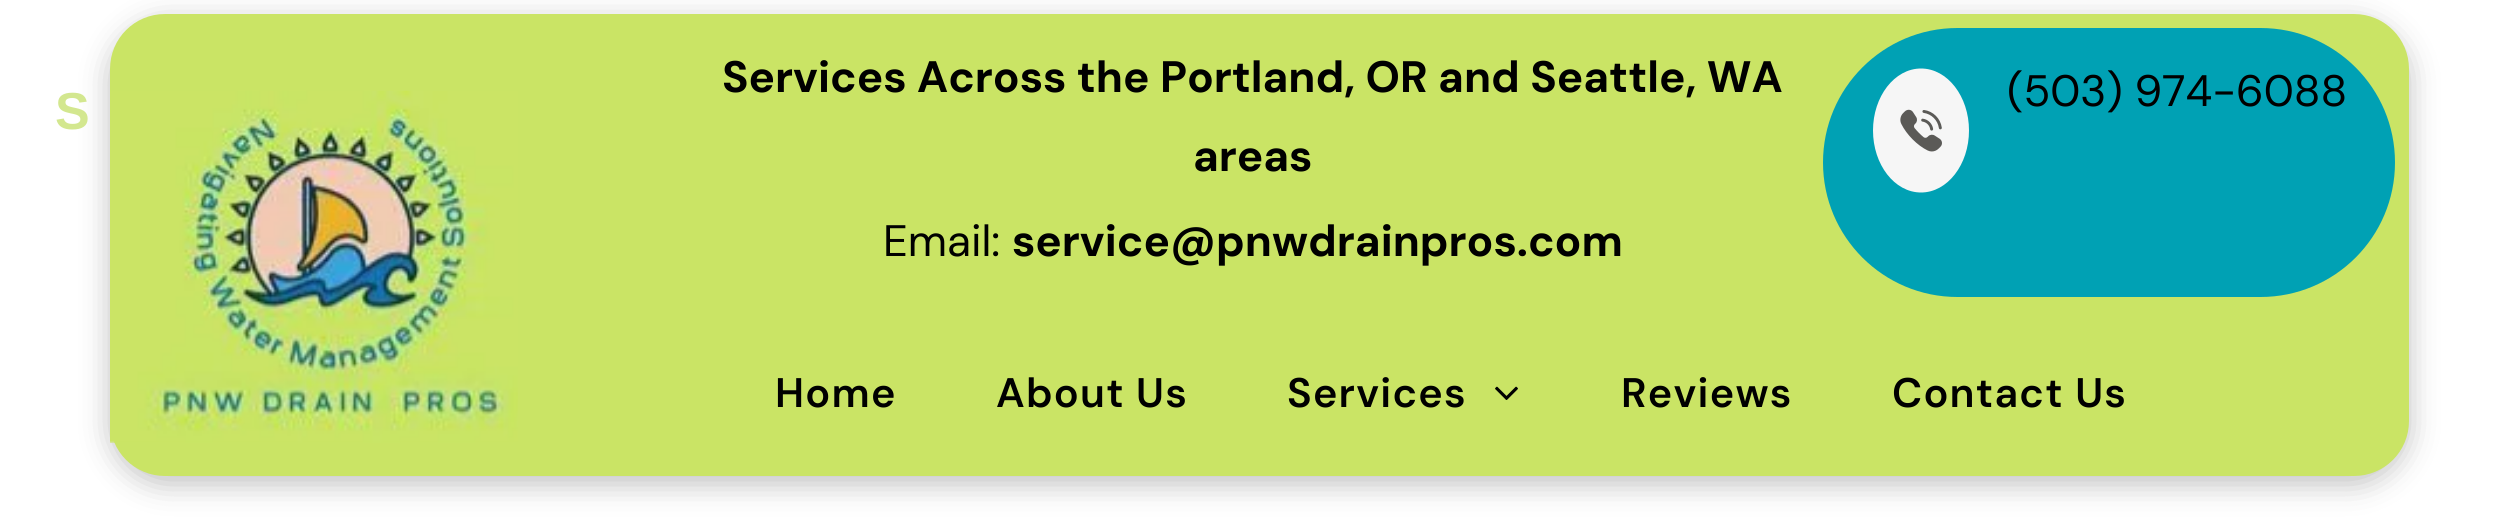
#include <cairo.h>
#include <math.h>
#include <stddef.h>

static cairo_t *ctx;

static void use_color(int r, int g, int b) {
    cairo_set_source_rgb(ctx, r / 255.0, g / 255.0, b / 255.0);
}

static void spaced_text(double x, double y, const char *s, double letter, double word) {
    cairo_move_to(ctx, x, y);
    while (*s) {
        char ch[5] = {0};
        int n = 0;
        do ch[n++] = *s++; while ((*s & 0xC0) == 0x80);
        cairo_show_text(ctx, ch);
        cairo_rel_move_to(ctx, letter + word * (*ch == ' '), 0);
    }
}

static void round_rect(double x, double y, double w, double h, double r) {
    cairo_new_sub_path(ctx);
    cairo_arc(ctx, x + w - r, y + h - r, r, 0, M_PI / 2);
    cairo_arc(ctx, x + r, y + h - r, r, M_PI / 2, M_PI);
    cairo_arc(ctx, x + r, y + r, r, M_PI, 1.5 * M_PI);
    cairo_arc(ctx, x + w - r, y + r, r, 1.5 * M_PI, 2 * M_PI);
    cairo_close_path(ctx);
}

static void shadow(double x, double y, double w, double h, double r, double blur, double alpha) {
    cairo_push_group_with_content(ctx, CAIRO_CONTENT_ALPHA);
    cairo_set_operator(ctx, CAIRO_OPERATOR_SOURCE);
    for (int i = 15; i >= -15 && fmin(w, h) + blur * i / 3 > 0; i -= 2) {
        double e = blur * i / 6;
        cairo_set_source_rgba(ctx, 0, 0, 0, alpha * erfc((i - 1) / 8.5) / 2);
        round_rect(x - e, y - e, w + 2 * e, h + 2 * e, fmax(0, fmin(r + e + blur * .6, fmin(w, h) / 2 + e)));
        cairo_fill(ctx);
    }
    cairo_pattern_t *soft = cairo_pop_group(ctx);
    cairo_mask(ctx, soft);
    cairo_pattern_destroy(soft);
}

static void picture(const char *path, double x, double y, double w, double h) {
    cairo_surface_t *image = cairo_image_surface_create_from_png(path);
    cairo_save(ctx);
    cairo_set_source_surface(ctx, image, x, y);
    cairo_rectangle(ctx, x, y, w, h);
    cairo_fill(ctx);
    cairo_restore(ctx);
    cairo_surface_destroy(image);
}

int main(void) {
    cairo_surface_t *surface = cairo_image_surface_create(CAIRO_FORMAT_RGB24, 2518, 531);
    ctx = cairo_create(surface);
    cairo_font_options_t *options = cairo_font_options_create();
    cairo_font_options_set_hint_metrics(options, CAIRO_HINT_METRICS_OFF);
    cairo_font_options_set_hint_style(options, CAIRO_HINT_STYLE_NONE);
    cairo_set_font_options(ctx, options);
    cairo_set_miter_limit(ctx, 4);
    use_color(255, 255, 255);
    cairo_paint(ctx);
    use_color(0, 0, 0);
    shadow(110, 22, 2299, 462, 55, 15, 0.25);
    cairo_select_font_face(ctx, "Liberation Sans", CAIRO_FONT_SLANT_NORMAL, CAIRO_FONT_WEIGHT_BOLD);
    cairo_set_font_size(ctx, 52);
    use_color(211, 231, 143);
    cairo_move_to(ctx, 55, 129);
    cairo_show_text(ctx, "S");
    use_color(202, 228, 101);
    cairo_new_path(ctx);
    cairo_move_to(ctx, 165, 14);
    cairo_line_to(ctx, 2354, 14);
    cairo_curve_to(ctx, 2384.5, 14, 2409, 38.5, 2409, 69);
    cairo_line_to(ctx, 2409, 311);
    cairo_line_to(ctx, 110, 311);
    cairo_line_to(ctx, 110, 69);
    cairo_curve_to(ctx, 110, 38.5, 134.5, 14, 165, 14);
    cairo_close_path(ctx);
    cairo_fill(ctx);
    cairo_select_font_face(ctx, "DM Sans", CAIRO_FONT_SLANT_NORMAL, CAIRO_FONT_WEIGHT_BOLD);
    cairo_set_font_size(ctx, 44);
    use_color(0, 0, 0);
    cairo_move_to(ctx, 722, 92);
    cairo_show_text(ctx, "Services Across the Portland, OR and Seattle, WA");
    cairo_move_to(ctx, 1193, 171);
    cairo_show_text(ctx, "areas");
    cairo_select_font_face(ctx, "DM Sans", CAIRO_FONT_SLANT_NORMAL, CAIRO_FONT_WEIGHT_NORMAL);
    cairo_move_to(ctx, 883, 256);
    cairo_show_text(ctx, "Email:");
    cairo_select_font_face(ctx, "DM Sans", CAIRO_FONT_SLANT_NORMAL, CAIRO_FONT_WEIGHT_BOLD);
    cairo_move_to(ctx, 1012, 256);
    cairo_show_text(ctx, "service@pnwdrainpros.com");
    use_color(0, 161, 180);
    round_rect(1823, 28, 572, 269, 134.5);
    cairo_fill(ctx);
    use_color(246, 246, 246);
    cairo_new_path(ctx);
    cairo_move_to(ctx, 1921, 68.5);
    cairo_curve_to(ctx, 1947.5, 68.5, 1969, 96.5, 1969, 130.5);
    cairo_curve_to(ctx, 1969, 164.5, 1947.5, 192.5, 1921, 192.5);
    cairo_curve_to(ctx, 1894.5, 192.5, 1873, 164.5, 1873, 130.5);
    cairo_curve_to(ctx, 1873, 96.5, 1894.5, 68.5, 1921, 68.5);
    cairo_close_path(ctx);
    cairo_fill(ctx);
    picture("img1.png", 1900, 109, 42, 43);
    cairo_select_font_face(ctx, "DM Sans", CAIRO_FONT_SLANT_NORMAL, CAIRO_FONT_WEIGHT_NORMAL);
    use_color(0, 0, 0);
    cairo_move_to(ctx, 2007, 106);
    cairo_show_text(ctx, "(503) 974-6088");
    use_color(202, 228, 101);
    cairo_new_path(ctx);
    cairo_move_to(ctx, 110, 311);
    cairo_line_to(ctx, 2409, 311);
    cairo_line_to(ctx, 2409, 421);
    cairo_curve_to(ctx, 2409, 451.5, 2384.5, 476, 2354, 476);
    cairo_line_to(ctx, 165, 476);
    cairo_curve_to(ctx, 134.5, 476, 110, 451.5, 110, 421);
    cairo_close_path(ctx);
    cairo_fill(ctx);
    picture("img2.png", 110, 90, 408, 353);
    cairo_select_font_face(ctx, "DM Sans SemiBold", CAIRO_FONT_SLANT_NORMAL, CAIRO_FONT_WEIGHT_NORMAL);
    cairo_set_font_size(ctx, 41.25);
    use_color(0, 0, 0);
    spaced_text(775, 407, "Home", 1.25, 0);
    spaced_text(996, 407, "About Us", 1.25, 0);
    spaced_text(1287, 407, "Services", 1.25, 0);
    picture("img3.png", 1495, 386, 23, 14);
    spaced_text(1621, 407, "Reviews", 1.25, 0);
    spaced_text(1892, 407, "Contact Us", 1.25, 0);
    cairo_surface_write_to_png(surface, "result.png");
    cairo_font_options_destroy(options);
    cairo_destroy(ctx);
    cairo_surface_destroy(surface);
    return 0;
}
